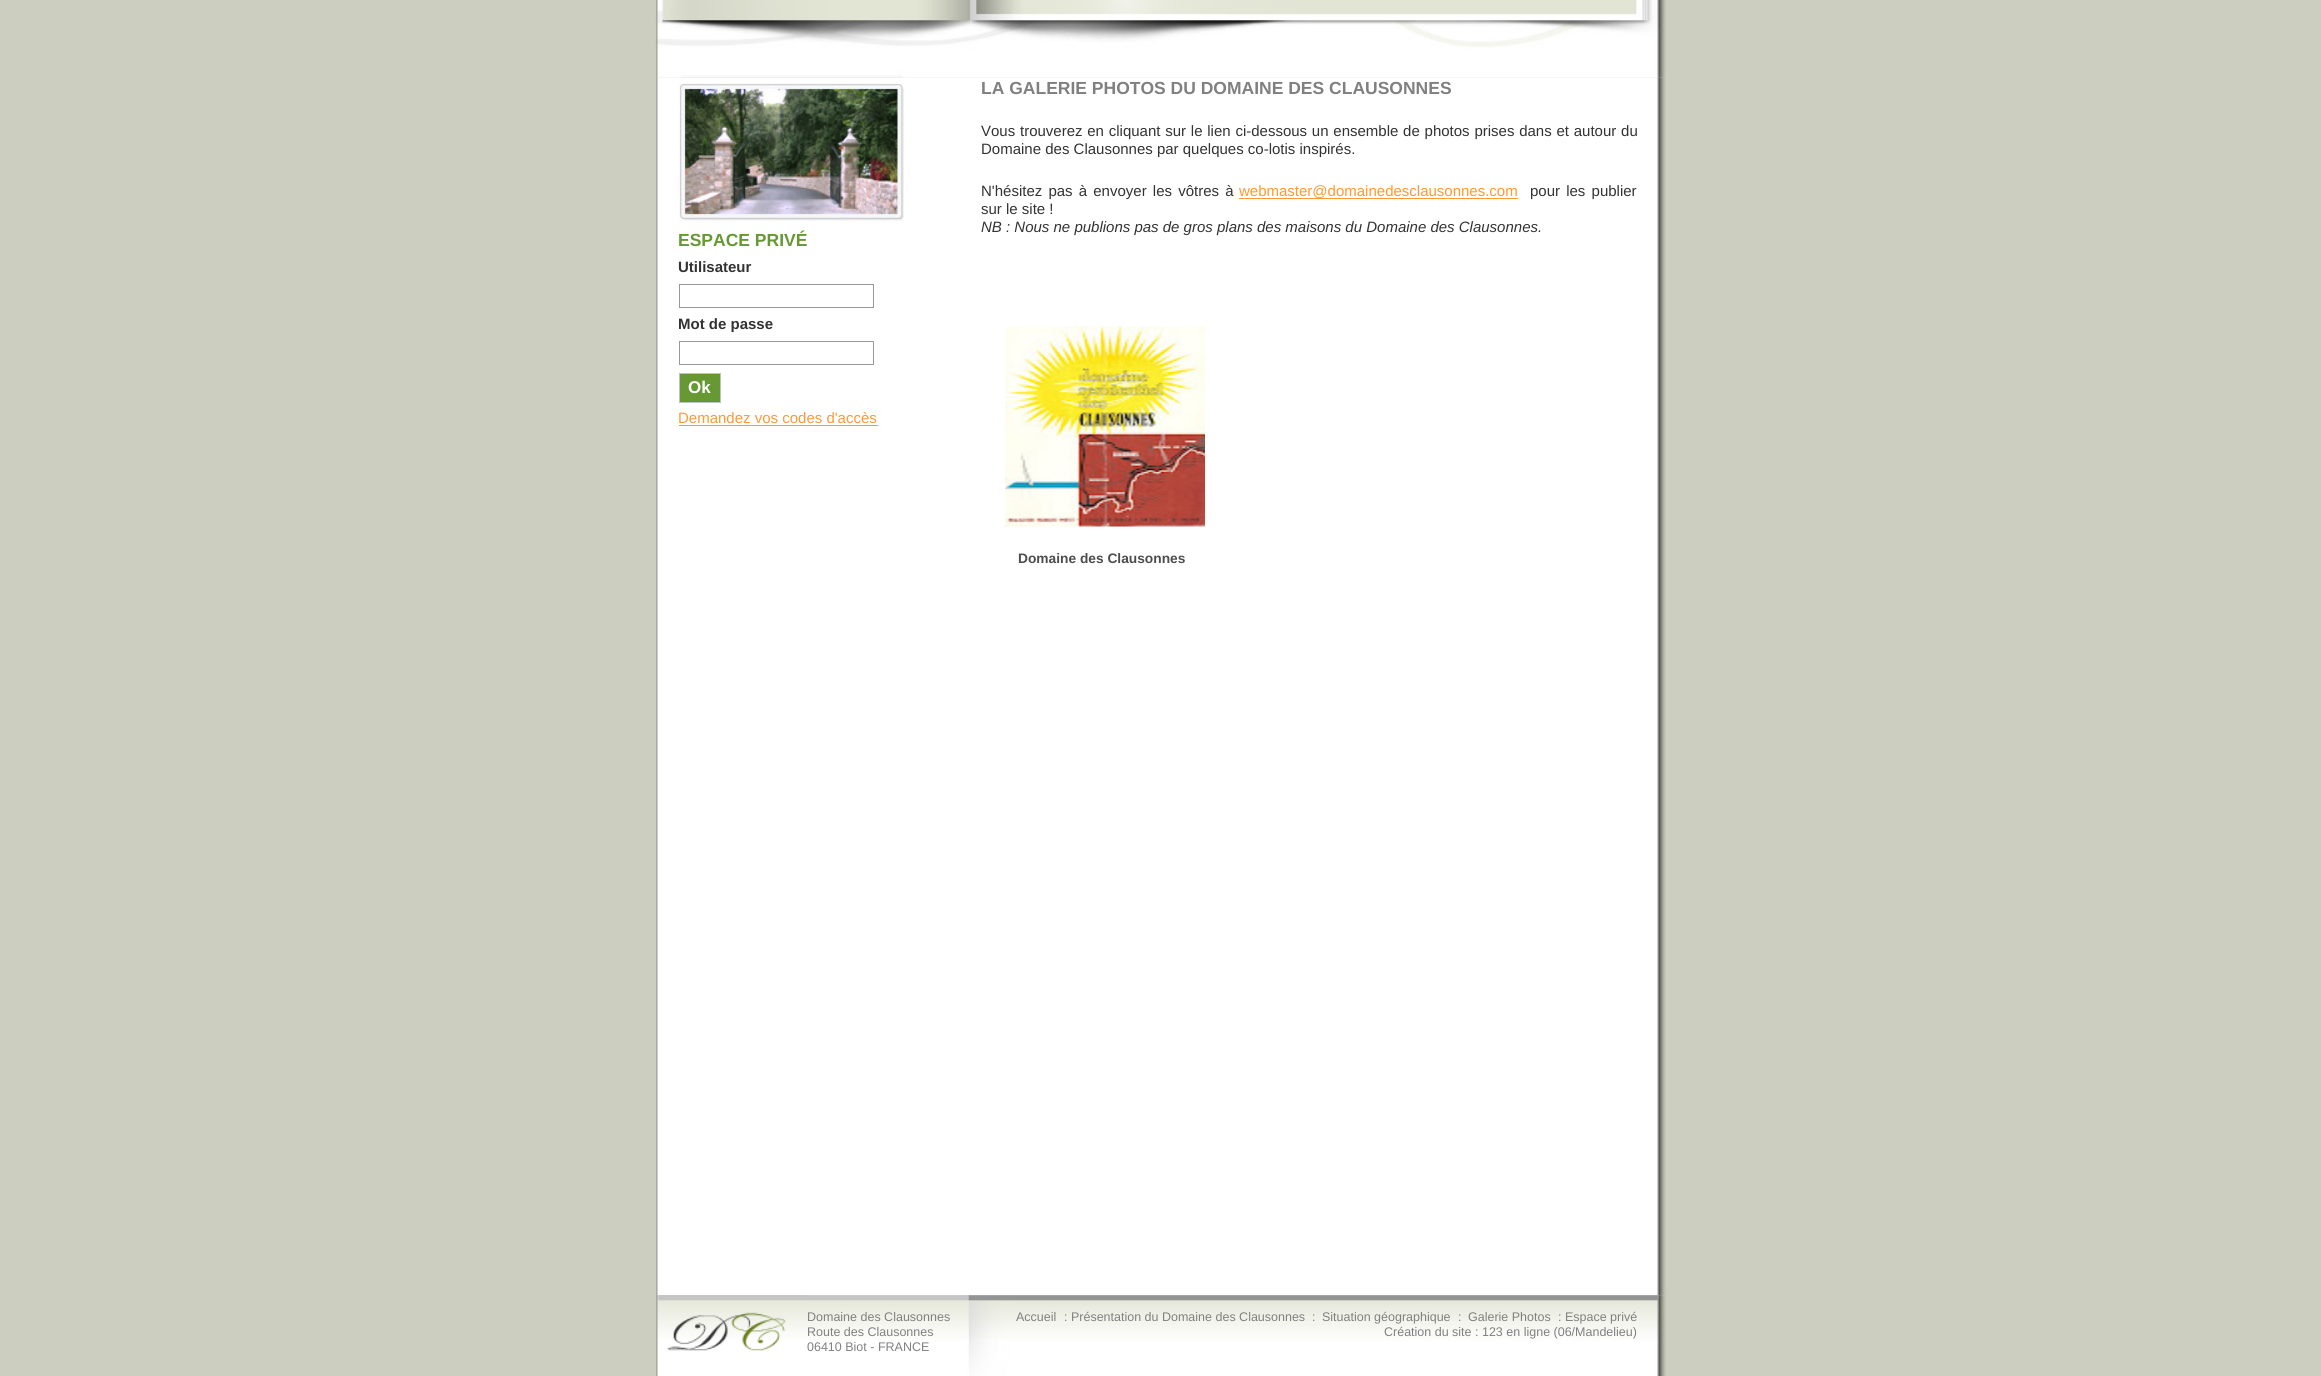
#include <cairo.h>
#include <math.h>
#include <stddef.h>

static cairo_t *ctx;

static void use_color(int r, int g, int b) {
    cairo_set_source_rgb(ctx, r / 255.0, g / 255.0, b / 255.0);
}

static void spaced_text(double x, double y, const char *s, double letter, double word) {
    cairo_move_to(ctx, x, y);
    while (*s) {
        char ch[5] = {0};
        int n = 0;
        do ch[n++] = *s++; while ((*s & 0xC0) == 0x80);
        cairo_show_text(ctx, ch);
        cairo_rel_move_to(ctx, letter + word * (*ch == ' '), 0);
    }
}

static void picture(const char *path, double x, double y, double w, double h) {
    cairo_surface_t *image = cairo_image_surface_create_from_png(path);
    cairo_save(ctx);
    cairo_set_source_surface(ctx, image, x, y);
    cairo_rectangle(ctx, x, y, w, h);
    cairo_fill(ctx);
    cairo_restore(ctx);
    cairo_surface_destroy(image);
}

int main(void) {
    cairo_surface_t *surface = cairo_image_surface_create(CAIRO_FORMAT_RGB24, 2321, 1376);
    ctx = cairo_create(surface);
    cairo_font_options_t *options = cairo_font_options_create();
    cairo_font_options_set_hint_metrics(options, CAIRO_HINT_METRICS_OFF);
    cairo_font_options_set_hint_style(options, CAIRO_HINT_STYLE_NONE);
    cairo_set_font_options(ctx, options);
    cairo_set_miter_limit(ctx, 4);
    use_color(204, 207, 191);
    cairo_paint(ctx);
    picture("img1.png", 655, 0, 1011, 78);
    picture("img2.png", 656, 77, 1010, 1219);
    picture("img3.png", 679, 83, 226, 140);
    cairo_select_font_face(ctx, "Liberation Sans", CAIRO_FONT_SLANT_NORMAL, CAIRO_FONT_WEIGHT_BOLD);
    cairo_set_font_size(ctx, 17.5);
    use_color(102, 153, 51);
    cairo_move_to(ctx, 678, 246);
    cairo_show_text(ctx, "ESPACE PRIVÉ");
    cairo_set_font_size(ctx, 15);
    use_color(51, 51, 51);
    cairo_move_to(ctx, 678, 272);
    cairo_show_text(ctx, "Utilisateur");
    cairo_rectangle(ctx, 679.5, 284.5, 194, 23);
    use_color(153, 153, 153);
    cairo_set_line_width(ctx, 1);
    cairo_stroke(ctx);
    use_color(51, 51, 51);
    cairo_move_to(ctx, 678, 329);
    cairo_show_text(ctx, "Mot de passe");
    cairo_rectangle(ctx, 679.5, 341.5, 194, 23);
    use_color(153, 153, 153);
    cairo_stroke(ctx);
    use_color(102, 153, 51);
    cairo_rectangle(ctx, 679.5, 373.5, 41, 29);
    cairo_fill_preserve(ctx);
    use_color(192, 192, 192);
    cairo_stroke(ctx);
    cairo_set_font_size(ctx, 17);
    use_color(255, 255, 255);
    cairo_move_to(ctx, 688, 393);
    cairo_show_text(ctx, "Ok");
    cairo_select_font_face(ctx, "Liberation Sans", CAIRO_FONT_SLANT_NORMAL, CAIRO_FONT_WEIGHT_NORMAL);
    cairo_set_font_size(ctx, 15);
    use_color(255, 153, 51);
    cairo_move_to(ctx, 678, 423);
    cairo_show_text(ctx, "Demandez vos codes d'accès");
    cairo_rectangle(ctx, 679, 425, 199, 1);
    cairo_fill(ctx);
    cairo_select_font_face(ctx, "Liberation Sans", CAIRO_FONT_SLANT_NORMAL, CAIRO_FONT_WEIGHT_BOLD);
    cairo_set_font_size(ctx, 17.5);
    use_color(128, 128, 128);
    cairo_move_to(ctx, 981, 94);
    cairo_show_text(ctx, "LA GALERIE PHOTOS DU DOMAINE DES CLAUSONNES");
    cairo_select_font_face(ctx, "Liberation Sans", CAIRO_FONT_SLANT_NORMAL, CAIRO_FONT_WEIGHT_NORMAL);
    cairo_set_font_size(ctx, 15);
    use_color(51, 51, 51);
    spaced_text(981, 136, "Vous trouverez en cliquant sur le lien ci-dessous un ensemble de photos prises dans et autour du", 0, 0.6);
    cairo_move_to(ctx, 981, 154);
    cairo_show_text(ctx, "Domaine des Clausonnes par quelques co-lotis inspirés.");
    spaced_text(981, 196, "N'hésitez pas à envoyer les vôtres à", 0, 2);
    use_color(255, 153, 51);
    cairo_rectangle(ctx, 1239, 198, 279, 1);
    cairo_fill(ctx);
    cairo_move_to(ctx, 1239, 196);
    cairo_show_text(ctx, "webmaster@domainedesclausonnes.com");
    use_color(51, 51, 51);
    spaced_text(1530, 196, "pour les publier", 0, 2);
    cairo_move_to(ctx, 981, 214);
    cairo_show_text(ctx, "sur le site !");
    cairo_select_font_face(ctx, "Liberation Sans", CAIRO_FONT_SLANT_ITALIC, CAIRO_FONT_WEIGHT_NORMAL);
    cairo_move_to(ctx, 981, 232);
    cairo_show_text(ctx, "NB : Nous ne publions pas de gros plans des maisons du Domaine des Clausonnes.");
    picture("img4.png", 1005, 326, 200, 201);
    cairo_select_font_face(ctx, "Liberation Sans", CAIRO_FONT_SLANT_NORMAL, CAIRO_FONT_WEIGHT_BOLD);
    cairo_set_font_size(ctx, 13.75);
    use_color(77, 77, 77);
    cairo_move_to(ctx, 1018, 563);
    cairo_show_text(ctx, "Domaine des Clausonnes");
    picture("img5.png", 655, 1295, 1011, 81);
    picture("img6.png", 655, 1295, 152, 56);
    cairo_select_font_face(ctx, "Liberation Sans", CAIRO_FONT_SLANT_NORMAL, CAIRO_FONT_WEIGHT_NORMAL);
    cairo_set_font_size(ctx, 12.5);
    use_color(128, 128, 128);
    cairo_move_to(ctx, 807, 1321);
    cairo_show_text(ctx, "Domaine des Clausonnes");
    cairo_move_to(ctx, 807, 1336);
    cairo_show_text(ctx, "Route des Clausonnes");
    cairo_move_to(ctx, 807, 1351);
    cairo_show_text(ctx, "06410 Biot - FRANCE");
    cairo_move_to(ctx, 1016, 1321);
    cairo_show_text(ctx, "Accueil");
    cairo_move_to(ctx, 1064, 1321);
    cairo_show_text(ctx, ": Présentation du Domaine des Clausonnes");
    cairo_move_to(ctx, 1312, 1321);
    cairo_show_text(ctx, ":");
    cairo_move_to(ctx, 1322, 1321);
    cairo_show_text(ctx, "Situation géographique");
    cairo_move_to(ctx, 1458, 1321);
    cairo_show_text(ctx, ":");
    cairo_move_to(ctx, 1468, 1321);
    cairo_show_text(ctx, "Galerie Photos");
    cairo_move_to(ctx, 1558, 1321);
    cairo_show_text(ctx, ": Espace privé");
    cairo_move_to(ctx, 1384, 1336);
    cairo_show_text(ctx, "Création du site : 123 en ligne (06/Mandelieu)");
    cairo_surface_write_to_png(surface, "result.png");
    cairo_font_options_destroy(options);
    cairo_destroy(ctx);
    cairo_surface_destroy(surface);
    return 0;
}
